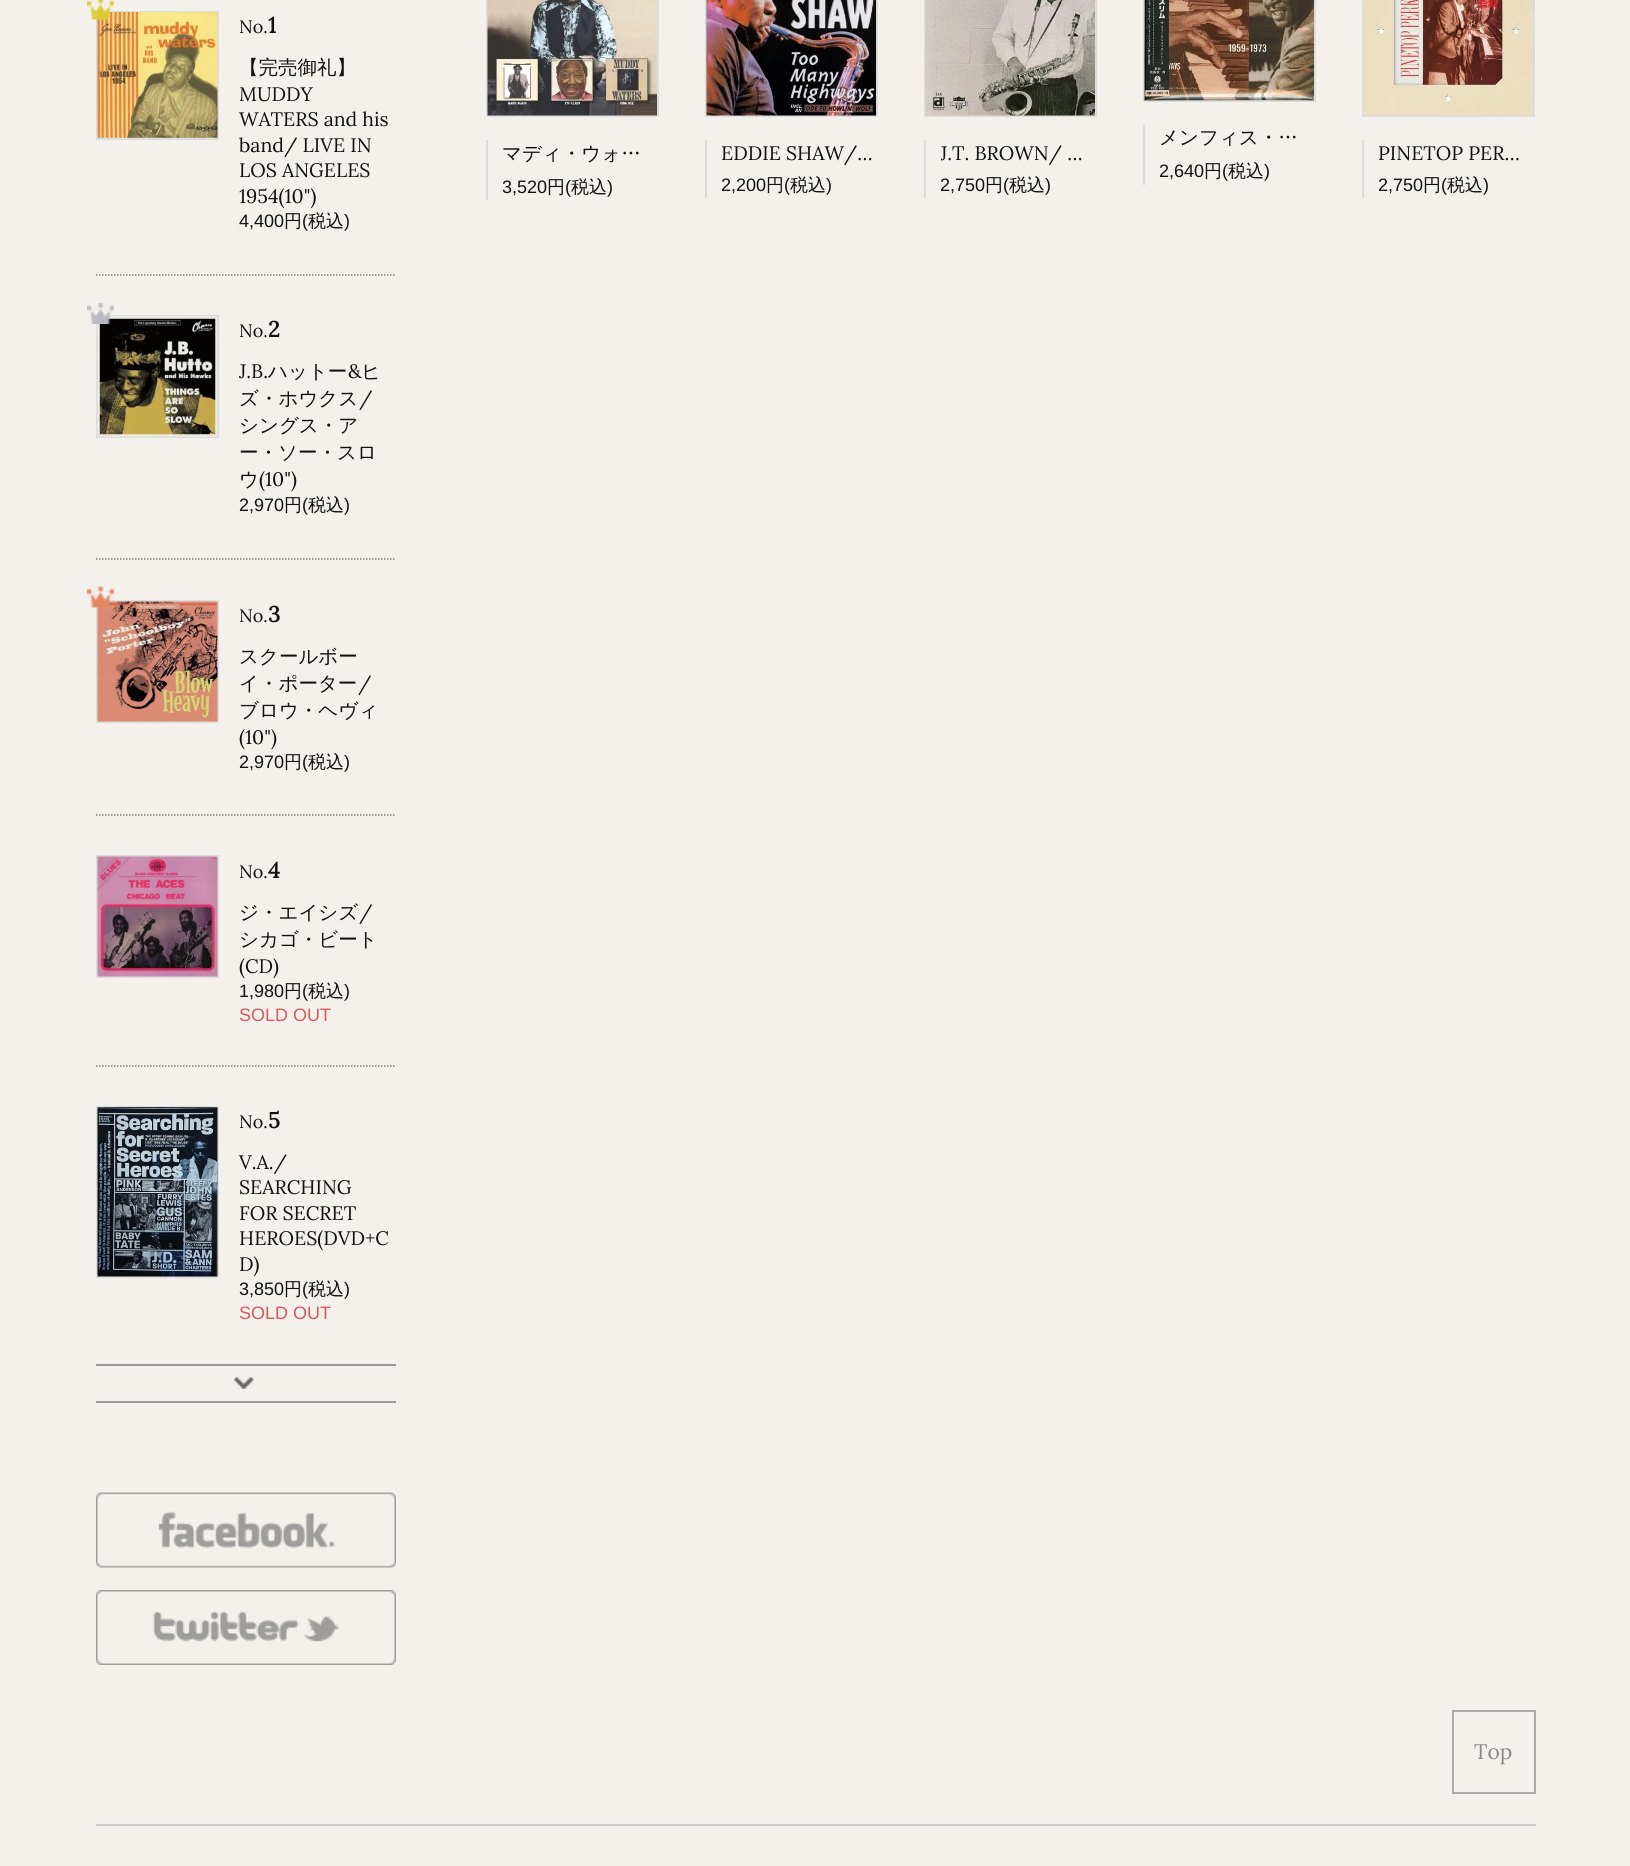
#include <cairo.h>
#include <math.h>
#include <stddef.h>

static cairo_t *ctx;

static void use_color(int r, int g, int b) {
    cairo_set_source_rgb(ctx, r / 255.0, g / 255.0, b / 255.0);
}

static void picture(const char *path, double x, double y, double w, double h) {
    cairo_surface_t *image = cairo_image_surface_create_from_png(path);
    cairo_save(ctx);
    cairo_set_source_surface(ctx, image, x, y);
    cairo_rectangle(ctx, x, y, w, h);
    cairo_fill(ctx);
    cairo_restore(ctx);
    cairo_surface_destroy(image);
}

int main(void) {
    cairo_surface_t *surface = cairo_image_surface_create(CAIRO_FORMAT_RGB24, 1630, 1866);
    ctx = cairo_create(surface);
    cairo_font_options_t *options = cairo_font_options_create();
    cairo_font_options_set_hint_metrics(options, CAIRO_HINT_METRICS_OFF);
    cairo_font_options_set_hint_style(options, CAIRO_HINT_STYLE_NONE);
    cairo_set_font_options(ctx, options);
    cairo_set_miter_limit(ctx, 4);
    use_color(244, 241, 236);
    cairo_paint(ctx);
    use_color(153, 153, 153);
    cairo_rectangle(ctx, 96, 1401, 300, 2);
    cairo_fill(ctx);
    cairo_rectangle(ctx, 97, 12, 121, 127);
    use_color(221, 221, 221);
    cairo_stroke(ctx);
    picture("img2.png", 97, 12, 121, 126);
    picture("img1.png", 87, 0, 27, 20);
    cairo_select_font_face(ctx, "Lora", CAIRO_FONT_SLANT_NORMAL, CAIRO_FONT_WEIGHT_NORMAL);
    cairo_set_font_size(ctx, 18);
    use_color(17, 17, 17);
    cairo_move_to(ctx, 239, 33);
    cairo_show_text(ctx, "No.");
    cairo_select_font_face(ctx, "Lora", CAIRO_FONT_SLANT_NORMAL, CAIRO_FONT_WEIGHT_BOLD);
    cairo_set_font_size(ctx, 22);
    cairo_move_to(ctx, 268, 33);
    cairo_show_text(ctx, "1");
    cairo_select_font_face(ctx, "WenQuanYi Zen Hei Medium", CAIRO_FONT_SLANT_NORMAL, CAIRO_FONT_WEIGHT_NORMAL);
    cairo_set_font_size(ctx, 19.5);
    cairo_move_to(ctx, 239, 74);
    cairo_show_text(ctx, "【完売御礼】");
    cairo_select_font_face(ctx, "Lora", CAIRO_FONT_SLANT_NORMAL, CAIRO_FONT_WEIGHT_NORMAL);
    cairo_move_to(ctx, 239, 101);
    cairo_show_text(ctx, "MUDDY");
    cairo_move_to(ctx, 239, 126);
    cairo_show_text(ctx, "WATERS and his");
    cairo_move_to(ctx, 239, 152);
    cairo_show_text(ctx, "band/ LIVE IN");
    cairo_move_to(ctx, 239, 177);
    cairo_show_text(ctx, "LOS ANGELES");
    cairo_move_to(ctx, 239, 203);
    cairo_show_text(ctx, "1954(10\")");
    cairo_select_font_face(ctx, "Liberation Sans", CAIRO_FONT_SLANT_NORMAL, CAIRO_FONT_WEIGHT_NORMAL);
    cairo_set_font_size(ctx, 18);
    cairo_move_to(ctx, 239, 227);
    cairo_show_text(ctx, "4,400");
    cairo_select_font_face(ctx, "WenQuanYi Zen Hei Medium", CAIRO_FONT_SLANT_NORMAL, CAIRO_FONT_WEIGHT_NORMAL);
    cairo_move_to(ctx, 284, 227);
    cairo_show_text(ctx, "円");
    cairo_select_font_face(ctx, "Liberation Sans", CAIRO_FONT_SLANT_NORMAL, CAIRO_FONT_WEIGHT_NORMAL);
    cairo_move_to(ctx, 302, 227);
    cairo_show_text(ctx, "(");
    cairo_select_font_face(ctx, "WenQuanYi Zen Hei Medium", CAIRO_FONT_SLANT_NORMAL, CAIRO_FONT_WEIGHT_NORMAL);
    cairo_move_to(ctx, 308, 227);
    cairo_show_text(ctx, "税込");
    cairo_select_font_face(ctx, "Liberation Sans", CAIRO_FONT_SLANT_NORMAL, CAIRO_FONT_WEIGHT_NORMAL);
    cairo_move_to(ctx, 344, 227);
    cairo_show_text(ctx, ")");
    cairo_new_path(ctx);
    cairo_move_to(ctx, 96, 275);
    cairo_line_to(ctx, 396, 275);
    use_color(131, 131, 131);
    cairo_set_line_width(ctx, 1.5);
    cairo_set_dash(ctx, (double[]){1.5, 1.5}, 2, 0);
    cairo_stroke(ctx);
    cairo_rectangle(ctx, 97, 316, 121, 121);
    use_color(221, 221, 221);
    cairo_set_line_width(ctx, 2);
    cairo_set_dash(ctx, NULL, 0, 0);
    cairo_stroke(ctx);
    picture("img4.png", 97, 316, 121, 121);
    picture("img3.png", 87, 303, 27, 21);
    cairo_select_font_face(ctx, "Lora", CAIRO_FONT_SLANT_NORMAL, CAIRO_FONT_WEIGHT_NORMAL);
    use_color(17, 17, 17);
    cairo_move_to(ctx, 239, 337);
    cairo_show_text(ctx, "No.");
    cairo_select_font_face(ctx, "Lora", CAIRO_FONT_SLANT_NORMAL, CAIRO_FONT_WEIGHT_BOLD);
    cairo_set_font_size(ctx, 22);
    cairo_move_to(ctx, 268, 337);
    cairo_show_text(ctx, "2");
    cairo_select_font_face(ctx, "Lora", CAIRO_FONT_SLANT_NORMAL, CAIRO_FONT_WEIGHT_NORMAL);
    cairo_set_font_size(ctx, 19.5);
    cairo_move_to(ctx, 239, 378);
    cairo_show_text(ctx, "J.B.");
    cairo_select_font_face(ctx, "WenQuanYi Zen Hei Medium", CAIRO_FONT_SLANT_NORMAL, CAIRO_FONT_WEIGHT_NORMAL);
    cairo_move_to(ctx, 268, 378);
    cairo_show_text(ctx, "ハットー");
    cairo_select_font_face(ctx, "Lora", CAIRO_FONT_SLANT_NORMAL, CAIRO_FONT_WEIGHT_NORMAL);
    cairo_move_to(ctx, 348, 378);
    cairo_show_text(ctx, "&");
    cairo_select_font_face(ctx, "WenQuanYi Zen Hei Medium", CAIRO_FONT_SLANT_NORMAL, CAIRO_FONT_WEIGHT_NORMAL);
    cairo_move_to(ctx, 361, 378);
    cairo_show_text(ctx, "ヒ");
    cairo_move_to(ctx, 239, 405);
    cairo_show_text(ctx, "ズ・ホウクス");
    cairo_select_font_face(ctx, "Lora", CAIRO_FONT_SLANT_NORMAL, CAIRO_FONT_WEIGHT_NORMAL);
    cairo_move_to(ctx, 359, 405);
    cairo_show_text(ctx, "/");
    cairo_select_font_face(ctx, "WenQuanYi Zen Hei Medium", CAIRO_FONT_SLANT_NORMAL, CAIRO_FONT_WEIGHT_NORMAL);
    cairo_move_to(ctx, 239, 432);
    cairo_show_text(ctx, "シングス・ア");
    cairo_move_to(ctx, 239, 459);
    cairo_show_text(ctx, "ー・ソー・スロ");
    cairo_move_to(ctx, 239, 486);
    cairo_show_text(ctx, "ウ");
    cairo_select_font_face(ctx, "Lora", CAIRO_FONT_SLANT_NORMAL, CAIRO_FONT_WEIGHT_NORMAL);
    cairo_move_to(ctx, 259, 486);
    cairo_show_text(ctx, "(10\")");
    cairo_select_font_face(ctx, "Liberation Sans", CAIRO_FONT_SLANT_NORMAL, CAIRO_FONT_WEIGHT_NORMAL);
    cairo_set_font_size(ctx, 18);
    cairo_move_to(ctx, 239, 511);
    cairo_show_text(ctx, "2,970");
    cairo_select_font_face(ctx, "WenQuanYi Zen Hei Medium", CAIRO_FONT_SLANT_NORMAL, CAIRO_FONT_WEIGHT_NORMAL);
    cairo_move_to(ctx, 284, 511);
    cairo_show_text(ctx, "円");
    cairo_select_font_face(ctx, "Liberation Sans", CAIRO_FONT_SLANT_NORMAL, CAIRO_FONT_WEIGHT_NORMAL);
    cairo_move_to(ctx, 302, 511);
    cairo_show_text(ctx, "(");
    cairo_select_font_face(ctx, "WenQuanYi Zen Hei Medium", CAIRO_FONT_SLANT_NORMAL, CAIRO_FONT_WEIGHT_NORMAL);
    cairo_move_to(ctx, 308, 511);
    cairo_show_text(ctx, "税込");
    cairo_select_font_face(ctx, "Liberation Sans", CAIRO_FONT_SLANT_NORMAL, CAIRO_FONT_WEIGHT_NORMAL);
    cairo_move_to(ctx, 344, 511);
    cairo_show_text(ctx, ")");
    cairo_new_path(ctx);
    cairo_move_to(ctx, 96, 559);
    cairo_line_to(ctx, 396, 559);
    use_color(131, 131, 131);
    cairo_set_line_width(ctx, 1.5);
    cairo_set_dash(ctx, (double[]){1.5, 1.5}, 2, 0);
    cairo_stroke(ctx);
    cairo_rectangle(ctx, 97, 601, 121, 121);
    use_color(221, 221, 221);
    cairo_set_line_width(ctx, 2);
    cairo_set_dash(ctx, NULL, 0, 0);
    cairo_stroke(ctx);
    picture("img6.png", 97, 601, 121, 121);
    picture("img5.png", 87, 586, 27, 22);
    cairo_select_font_face(ctx, "Lora", CAIRO_FONT_SLANT_NORMAL, CAIRO_FONT_WEIGHT_NORMAL);
    use_color(17, 17, 17);
    cairo_move_to(ctx, 239, 622);
    cairo_show_text(ctx, "No.");
    cairo_select_font_face(ctx, "Lora", CAIRO_FONT_SLANT_NORMAL, CAIRO_FONT_WEIGHT_BOLD);
    cairo_set_font_size(ctx, 22);
    cairo_move_to(ctx, 268, 622);
    cairo_show_text(ctx, "3");
    cairo_select_font_face(ctx, "WenQuanYi Zen Hei Medium", CAIRO_FONT_SLANT_NORMAL, CAIRO_FONT_WEIGHT_NORMAL);
    cairo_set_font_size(ctx, 19.5);
    cairo_move_to(ctx, 239, 663);
    cairo_show_text(ctx, "スクールボー");
    cairo_move_to(ctx, 239, 690);
    cairo_show_text(ctx, "イ・ポーター");
    cairo_select_font_face(ctx, "Lora", CAIRO_FONT_SLANT_NORMAL, CAIRO_FONT_WEIGHT_NORMAL);
    cairo_move_to(ctx, 358, 690);
    cairo_show_text(ctx, "/");
    cairo_select_font_face(ctx, "WenQuanYi Zen Hei Medium", CAIRO_FONT_SLANT_NORMAL, CAIRO_FONT_WEIGHT_NORMAL);
    cairo_move_to(ctx, 239, 717);
    cairo_show_text(ctx, "ブロウ・ヘヴィ");
    cairo_select_font_face(ctx, "Lora", CAIRO_FONT_SLANT_NORMAL, CAIRO_FONT_WEIGHT_NORMAL);
    cairo_move_to(ctx, 239, 744);
    cairo_show_text(ctx, "(10\")");
    cairo_select_font_face(ctx, "Liberation Sans", CAIRO_FONT_SLANT_NORMAL, CAIRO_FONT_WEIGHT_NORMAL);
    cairo_set_font_size(ctx, 18);
    cairo_move_to(ctx, 239, 768);
    cairo_show_text(ctx, "2,970");
    cairo_select_font_face(ctx, "WenQuanYi Zen Hei Medium", CAIRO_FONT_SLANT_NORMAL, CAIRO_FONT_WEIGHT_NORMAL);
    cairo_move_to(ctx, 284, 768);
    cairo_show_text(ctx, "円");
    cairo_select_font_face(ctx, "Liberation Sans", CAIRO_FONT_SLANT_NORMAL, CAIRO_FONT_WEIGHT_NORMAL);
    cairo_move_to(ctx, 302, 768);
    cairo_show_text(ctx, "(");
    cairo_select_font_face(ctx, "WenQuanYi Zen Hei Medium", CAIRO_FONT_SLANT_NORMAL, CAIRO_FONT_WEIGHT_NORMAL);
    cairo_move_to(ctx, 308, 768);
    cairo_show_text(ctx, "税込");
    cairo_select_font_face(ctx, "Liberation Sans", CAIRO_FONT_SLANT_NORMAL, CAIRO_FONT_WEIGHT_NORMAL);
    cairo_move_to(ctx, 344, 768);
    cairo_show_text(ctx, ")");
    cairo_new_path(ctx);
    cairo_move_to(ctx, 96, 815);
    cairo_line_to(ctx, 396, 815);
    use_color(131, 131, 131);
    cairo_set_line_width(ctx, 1.5);
    cairo_set_dash(ctx, (double[]){1.5, 1.5}, 2, 0);
    cairo_stroke(ctx);
    cairo_rectangle(ctx, 97, 856, 121, 121);
    use_color(221, 221, 221);
    cairo_set_line_width(ctx, 2);
    cairo_set_dash(ctx, NULL, 0, 0);
    cairo_stroke(ctx);
    picture("img7.png", 97, 856, 121, 121);
    cairo_select_font_face(ctx, "Lora", CAIRO_FONT_SLANT_NORMAL, CAIRO_FONT_WEIGHT_NORMAL);
    use_color(17, 17, 17);
    cairo_move_to(ctx, 239, 878);
    cairo_show_text(ctx, "No.");
    cairo_select_font_face(ctx, "Lora", CAIRO_FONT_SLANT_NORMAL, CAIRO_FONT_WEIGHT_BOLD);
    cairo_set_font_size(ctx, 22);
    cairo_move_to(ctx, 268, 878);
    cairo_show_text(ctx, "4");
    cairo_select_font_face(ctx, "WenQuanYi Zen Hei Medium", CAIRO_FONT_SLANT_NORMAL, CAIRO_FONT_WEIGHT_NORMAL);
    cairo_set_font_size(ctx, 19.5);
    cairo_move_to(ctx, 239, 919);
    cairo_show_text(ctx, "ジ・エイシズ");
    cairo_select_font_face(ctx, "Lora", CAIRO_FONT_SLANT_NORMAL, CAIRO_FONT_WEIGHT_NORMAL);
    cairo_move_to(ctx, 359, 919);
    cairo_show_text(ctx, "/");
    cairo_select_font_face(ctx, "WenQuanYi Zen Hei Medium", CAIRO_FONT_SLANT_NORMAL, CAIRO_FONT_WEIGHT_NORMAL);
    cairo_move_to(ctx, 239, 946);
    cairo_show_text(ctx, "シカゴ・ビート");
    cairo_select_font_face(ctx, "Lora", CAIRO_FONT_SLANT_NORMAL, CAIRO_FONT_WEIGHT_NORMAL);
    cairo_move_to(ctx, 239, 973);
    cairo_show_text(ctx, "(CD)");
    cairo_select_font_face(ctx, "Liberation Sans", CAIRO_FONT_SLANT_NORMAL, CAIRO_FONT_WEIGHT_NORMAL);
    cairo_set_font_size(ctx, 18);
    cairo_move_to(ctx, 239, 997);
    cairo_show_text(ctx, "1,980");
    cairo_select_font_face(ctx, "WenQuanYi Zen Hei Medium", CAIRO_FONT_SLANT_NORMAL, CAIRO_FONT_WEIGHT_NORMAL);
    cairo_move_to(ctx, 284, 997);
    cairo_show_text(ctx, "円");
    cairo_select_font_face(ctx, "Liberation Sans", CAIRO_FONT_SLANT_NORMAL, CAIRO_FONT_WEIGHT_NORMAL);
    cairo_move_to(ctx, 302, 997);
    cairo_show_text(ctx, "(");
    cairo_select_font_face(ctx, "WenQuanYi Zen Hei Medium", CAIRO_FONT_SLANT_NORMAL, CAIRO_FONT_WEIGHT_NORMAL);
    cairo_move_to(ctx, 308, 997);
    cairo_show_text(ctx, "税込");
    cairo_select_font_face(ctx, "Liberation Sans", CAIRO_FONT_SLANT_NORMAL, CAIRO_FONT_WEIGHT_NORMAL);
    cairo_move_to(ctx, 344, 997);
    cairo_show_text(ctx, ")");
    use_color(218, 88, 88);
    cairo_move_to(ctx, 239, 1021);
    cairo_show_text(ctx, "SOLD OUT");
    cairo_new_path(ctx);
    cairo_move_to(ctx, 96, 1066);
    cairo_line_to(ctx, 396, 1066);
    use_color(131, 131, 131);
    cairo_set_line_width(ctx, 1.5);
    cairo_set_dash(ctx, (double[]){1.5, 1.5}, 2, 0);
    cairo_stroke(ctx);
    cairo_rectangle(ctx, 97, 1107, 121, 170);
    use_color(221, 221, 221);
    cairo_set_line_width(ctx, 2);
    cairo_set_dash(ctx, NULL, 0, 0);
    cairo_stroke(ctx);
    picture("img8.png", 97, 1107, 121, 170);
    cairo_select_font_face(ctx, "Lora", CAIRO_FONT_SLANT_NORMAL, CAIRO_FONT_WEIGHT_NORMAL);
    use_color(17, 17, 17);
    cairo_move_to(ctx, 239, 1128);
    cairo_show_text(ctx, "No.");
    cairo_select_font_face(ctx, "Lora", CAIRO_FONT_SLANT_NORMAL, CAIRO_FONT_WEIGHT_BOLD);
    cairo_set_font_size(ctx, 22);
    cairo_move_to(ctx, 268, 1128);
    cairo_show_text(ctx, "5");
    cairo_select_font_face(ctx, "Lora", CAIRO_FONT_SLANT_NORMAL, CAIRO_FONT_WEIGHT_NORMAL);
    cairo_set_font_size(ctx, 19.5);
    cairo_move_to(ctx, 239, 1169);
    cairo_show_text(ctx, "V.A./");
    cairo_move_to(ctx, 239, 1194);
    cairo_show_text(ctx, "SEARCHING");
    cairo_move_to(ctx, 239, 1220);
    cairo_show_text(ctx, "FOR SECRET");
    cairo_move_to(ctx, 239, 1245);
    cairo_show_text(ctx, "HEROES(DVD+C");
    cairo_move_to(ctx, 239, 1271);
    cairo_show_text(ctx, "D)");
    cairo_select_font_face(ctx, "Liberation Sans", CAIRO_FONT_SLANT_NORMAL, CAIRO_FONT_WEIGHT_NORMAL);
    cairo_set_font_size(ctx, 18);
    cairo_move_to(ctx, 239, 1295);
    cairo_show_text(ctx, "3,850");
    cairo_select_font_face(ctx, "WenQuanYi Zen Hei Medium", CAIRO_FONT_SLANT_NORMAL, CAIRO_FONT_WEIGHT_NORMAL);
    cairo_move_to(ctx, 284, 1295);
    cairo_show_text(ctx, "円");
    cairo_select_font_face(ctx, "Liberation Sans", CAIRO_FONT_SLANT_NORMAL, CAIRO_FONT_WEIGHT_NORMAL);
    cairo_move_to(ctx, 302, 1295);
    cairo_show_text(ctx, "(");
    cairo_select_font_face(ctx, "WenQuanYi Zen Hei Medium", CAIRO_FONT_SLANT_NORMAL, CAIRO_FONT_WEIGHT_NORMAL);
    cairo_move_to(ctx, 308, 1295);
    cairo_show_text(ctx, "税込");
    cairo_select_font_face(ctx, "Liberation Sans", CAIRO_FONT_SLANT_NORMAL, CAIRO_FONT_WEIGHT_NORMAL);
    cairo_move_to(ctx, 344, 1295);
    cairo_show_text(ctx, ")");
    use_color(218, 88, 88);
    cairo_move_to(ctx, 239, 1319);
    cairo_show_text(ctx, "SOLD OUT");
    use_color(153, 153, 153);
    cairo_rectangle(ctx, 96, 1364, 300, 2);
    cairo_fill(ctx);
    picture("img9.png", 234, 1377, 20, 12);
    picture("img10.png", 96, 1492, 300, 76);
    picture("img11.png", 96, 1590, 300, 75);
    cairo_rectangle(ctx, 487, -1, 171, 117);
    use_color(221, 221, 221);
    cairo_stroke(ctx);
    picture("img12.png", 487, 0, 170, 116);
    cairo_rectangle(ctx, 486, 140, 2, 60);
    cairo_fill(ctx);
    cairo_select_font_face(ctx, "WenQuanYi Zen Hei Medium", CAIRO_FONT_SLANT_NORMAL, CAIRO_FONT_WEIGHT_NORMAL);
    cairo_set_font_size(ctx, 19.5);
    use_color(17, 17, 17);
    cairo_move_to(ctx, 502, 160);
    cairo_show_text(ctx, "マディ・ウォ…");
    cairo_save(ctx);
    cairo_rectangle(ctx, 503, 174, 153, 26);
    cairo_clip(ctx);
    cairo_select_font_face(ctx, "Liberation Sans", CAIRO_FONT_SLANT_NORMAL, CAIRO_FONT_WEIGHT_NORMAL);
    cairo_set_font_size(ctx, 18);
    cairo_move_to(ctx, 502, 193);
    cairo_show_text(ctx, "3,520");
    cairo_restore(ctx);
    cairo_set_font_size(ctx, 18);
    cairo_move_to(ctx, 547, 193);
    cairo_show_text(ctx, "円");
    cairo_select_font_face(ctx, "Liberation Sans", CAIRO_FONT_SLANT_NORMAL, CAIRO_FONT_WEIGHT_NORMAL);
    cairo_move_to(ctx, 565, 193);
    cairo_show_text(ctx, "(");
    cairo_select_font_face(ctx, "WenQuanYi Zen Hei Medium", CAIRO_FONT_SLANT_NORMAL, CAIRO_FONT_WEIGHT_NORMAL);
    cairo_move_to(ctx, 571, 193);
    cairo_show_text(ctx, "税込");
    cairo_select_font_face(ctx, "Liberation Sans", CAIRO_FONT_SLANT_NORMAL, CAIRO_FONT_WEIGHT_NORMAL);
    cairo_move_to(ctx, 607, 193);
    cairo_show_text(ctx, ")");
    cairo_rectangle(ctx, 706, -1, 171, 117);
    use_color(221, 221, 221);
    cairo_stroke(ctx);
    picture("img13.png", 706, 0, 170, 116);
    cairo_rectangle(ctx, 705, 140, 2, 58);
    cairo_fill(ctx);
    cairo_select_font_face(ctx, "Lora", CAIRO_FONT_SLANT_NORMAL, CAIRO_FONT_WEIGHT_NORMAL);
    cairo_set_font_size(ctx, 19.5);
    use_color(17, 17, 17);
    cairo_move_to(ctx, 721, 160);
    cairo_show_text(ctx, "EDDIE SHAW/…");
    cairo_save(ctx);
    cairo_rectangle(ctx, 722, 173, 153, 25);
    cairo_clip(ctx);
    cairo_select_font_face(ctx, "Liberation Sans", CAIRO_FONT_SLANT_NORMAL, CAIRO_FONT_WEIGHT_NORMAL);
    cairo_set_font_size(ctx, 18);
    cairo_move_to(ctx, 721, 191);
    cairo_show_text(ctx, "2,200");
    cairo_restore(ctx);
    cairo_select_font_face(ctx, "WenQuanYi Zen Hei Medium", CAIRO_FONT_SLANT_NORMAL, CAIRO_FONT_WEIGHT_NORMAL);
    cairo_set_font_size(ctx, 18);
    cairo_move_to(ctx, 766, 191);
    cairo_show_text(ctx, "円");
    cairo_select_font_face(ctx, "Liberation Sans", CAIRO_FONT_SLANT_NORMAL, CAIRO_FONT_WEIGHT_NORMAL);
    cairo_move_to(ctx, 784, 191);
    cairo_show_text(ctx, "(");
    cairo_select_font_face(ctx, "WenQuanYi Zen Hei Medium", CAIRO_FONT_SLANT_NORMAL, CAIRO_FONT_WEIGHT_NORMAL);
    cairo_move_to(ctx, 790, 191);
    cairo_show_text(ctx, "税込");
    cairo_select_font_face(ctx, "Liberation Sans", CAIRO_FONT_SLANT_NORMAL, CAIRO_FONT_WEIGHT_NORMAL);
    cairo_move_to(ctx, 826, 191);
    cairo_show_text(ctx, ")");
    cairo_rectangle(ctx, 925, -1, 171, 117);
    use_color(221, 221, 221);
    cairo_stroke(ctx);
    picture("img14.png", 925, 0, 170, 116);
    cairo_rectangle(ctx, 924, 140, 2, 58);
    cairo_fill(ctx);
    cairo_save(ctx);
    cairo_rectangle(ctx, 941, 140, 153, 25);
    cairo_clip(ctx);
    cairo_select_font_face(ctx, "Lora", CAIRO_FONT_SLANT_NORMAL, CAIRO_FONT_WEIGHT_NORMAL);
    cairo_set_font_size(ctx, 19.5);
    use_color(17, 17, 17);
    cairo_move_to(ctx, 940, 160);
    cairo_show_text(ctx, "J.T. BROWN/ …");
    cairo_restore(ctx);
    cairo_save(ctx);
    cairo_rectangle(ctx, 941, 173, 153, 25);
    cairo_clip(ctx);
    use_color(17, 17, 17);
    cairo_move_to(ctx, 940, 191);
    cairo_show_text(ctx, "2,750");
    cairo_restore(ctx);
    cairo_select_font_face(ctx, "WenQuanYi Zen Hei Medium", CAIRO_FONT_SLANT_NORMAL, CAIRO_FONT_WEIGHT_NORMAL);
    use_color(17, 17, 17);
    cairo_move_to(ctx, 985, 191);
    cairo_show_text(ctx, "円");
    cairo_select_font_face(ctx, "Liberation Sans", CAIRO_FONT_SLANT_NORMAL, CAIRO_FONT_WEIGHT_NORMAL);
    cairo_move_to(ctx, 1003, 191);
    cairo_show_text(ctx, "(");
    cairo_select_font_face(ctx, "WenQuanYi Zen Hei Medium", CAIRO_FONT_SLANT_NORMAL, CAIRO_FONT_WEIGHT_NORMAL);
    cairo_move_to(ctx, 1009, 191);
    cairo_show_text(ctx, "税込");
    cairo_select_font_face(ctx, "Liberation Sans", CAIRO_FONT_SLANT_NORMAL, CAIRO_FONT_WEIGHT_NORMAL);
    cairo_move_to(ctx, 1045, 191);
    cairo_show_text(ctx, ")");
    cairo_rectangle(ctx, 1144, -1, 171, 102);
    use_color(221, 221, 221);
    cairo_stroke(ctx);
    picture("img15.png", 1144, 0, 170, 101);
    cairo_rectangle(ctx, 1143, 125, 2, 60);
    cairo_fill(ctx);
    cairo_select_font_face(ctx, "WenQuanYi Zen Hei Medium", CAIRO_FONT_SLANT_NORMAL, CAIRO_FONT_WEIGHT_NORMAL);
    cairo_set_font_size(ctx, 19.5);
    use_color(17, 17, 17);
    cairo_move_to(ctx, 1159, 144);
    cairo_show_text(ctx, "メンフィス・…");
    cairo_save(ctx);
    cairo_rectangle(ctx, 1160, 159, 153, 26);
    cairo_clip(ctx);
    cairo_select_font_face(ctx, "Liberation Sans", CAIRO_FONT_SLANT_NORMAL, CAIRO_FONT_WEIGHT_NORMAL);
    cairo_set_font_size(ctx, 18);
    cairo_move_to(ctx, 1159, 177);
    cairo_show_text(ctx, "2,640");
    cairo_restore(ctx);
    cairo_set_font_size(ctx, 18);
    cairo_move_to(ctx, 1204, 177);
    cairo_show_text(ctx, "円");
    cairo_select_font_face(ctx, "Liberation Sans", CAIRO_FONT_SLANT_NORMAL, CAIRO_FONT_WEIGHT_NORMAL);
    cairo_move_to(ctx, 1222, 177);
    cairo_show_text(ctx, "(");
    cairo_select_font_face(ctx, "WenQuanYi Zen Hei Medium", CAIRO_FONT_SLANT_NORMAL, CAIRO_FONT_WEIGHT_NORMAL);
    cairo_move_to(ctx, 1228, 177);
    cairo_show_text(ctx, "税込");
    cairo_select_font_face(ctx, "Liberation Sans", CAIRO_FONT_SLANT_NORMAL, CAIRO_FONT_WEIGHT_NORMAL);
    cairo_move_to(ctx, 1264, 177);
    cairo_show_text(ctx, ")");
    cairo_rectangle(ctx, 1363, -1, 171, 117);
    use_color(221, 221, 221);
    cairo_stroke(ctx);
    picture("img16.png", 1363, 0, 170, 116);
    cairo_rectangle(ctx, 1362, 140, 2, 58);
    cairo_fill(ctx);
    cairo_select_font_face(ctx, "Lora", CAIRO_FONT_SLANT_NORMAL, CAIRO_FONT_WEIGHT_NORMAL);
    cairo_set_font_size(ctx, 19.5);
    use_color(17, 17, 17);
    cairo_move_to(ctx, 1378, 160);
    cairo_show_text(ctx, "PINETOP PER…");
    cairo_save(ctx);
    cairo_rectangle(ctx, 1379, 173, 153, 25);
    cairo_clip(ctx);
    cairo_select_font_face(ctx, "Liberation Sans", CAIRO_FONT_SLANT_NORMAL, CAIRO_FONT_WEIGHT_NORMAL);
    cairo_set_font_size(ctx, 18);
    cairo_move_to(ctx, 1378, 191);
    cairo_show_text(ctx, "2,750");
    cairo_restore(ctx);
    cairo_select_font_face(ctx, "WenQuanYi Zen Hei Medium", CAIRO_FONT_SLANT_NORMAL, CAIRO_FONT_WEIGHT_NORMAL);
    cairo_set_font_size(ctx, 18);
    cairo_move_to(ctx, 1423, 191);
    cairo_show_text(ctx, "円");
    cairo_select_font_face(ctx, "Liberation Sans", CAIRO_FONT_SLANT_NORMAL, CAIRO_FONT_WEIGHT_NORMAL);
    cairo_move_to(ctx, 1441, 191);
    cairo_show_text(ctx, "(");
    cairo_select_font_face(ctx, "WenQuanYi Zen Hei Medium", CAIRO_FONT_SLANT_NORMAL, CAIRO_FONT_WEIGHT_NORMAL);
    cairo_move_to(ctx, 1447, 191);
    cairo_show_text(ctx, "税込");
    cairo_select_font_face(ctx, "Liberation Sans", CAIRO_FONT_SLANT_NORMAL, CAIRO_FONT_WEIGHT_NORMAL);
    cairo_move_to(ctx, 1483, 191);
    cairo_show_text(ctx, ")");
    cairo_rectangle(ctx, 1453, 1711, 82, 82);
    use_color(170, 170, 170);
    cairo_stroke(ctx);
    cairo_select_font_face(ctx, "Lora", CAIRO_FONT_SLANT_NORMAL, CAIRO_FONT_WEIGHT_NORMAL);
    cairo_set_font_size(ctx, 21);
    use_color(136, 136, 136);
    cairo_move_to(ctx, 1474, 1759);
    cairo_show_text(ctx, "Top");
    use_color(204, 204, 204);
    cairo_rectangle(ctx, 96, 1824, 1440, 2);
    cairo_fill(ctx);
    cairo_surface_write_to_png(surface, "result.png");
    cairo_font_options_destroy(options);
    cairo_destroy(ctx);
    cairo_surface_destroy(surface);
    return 0;
}
